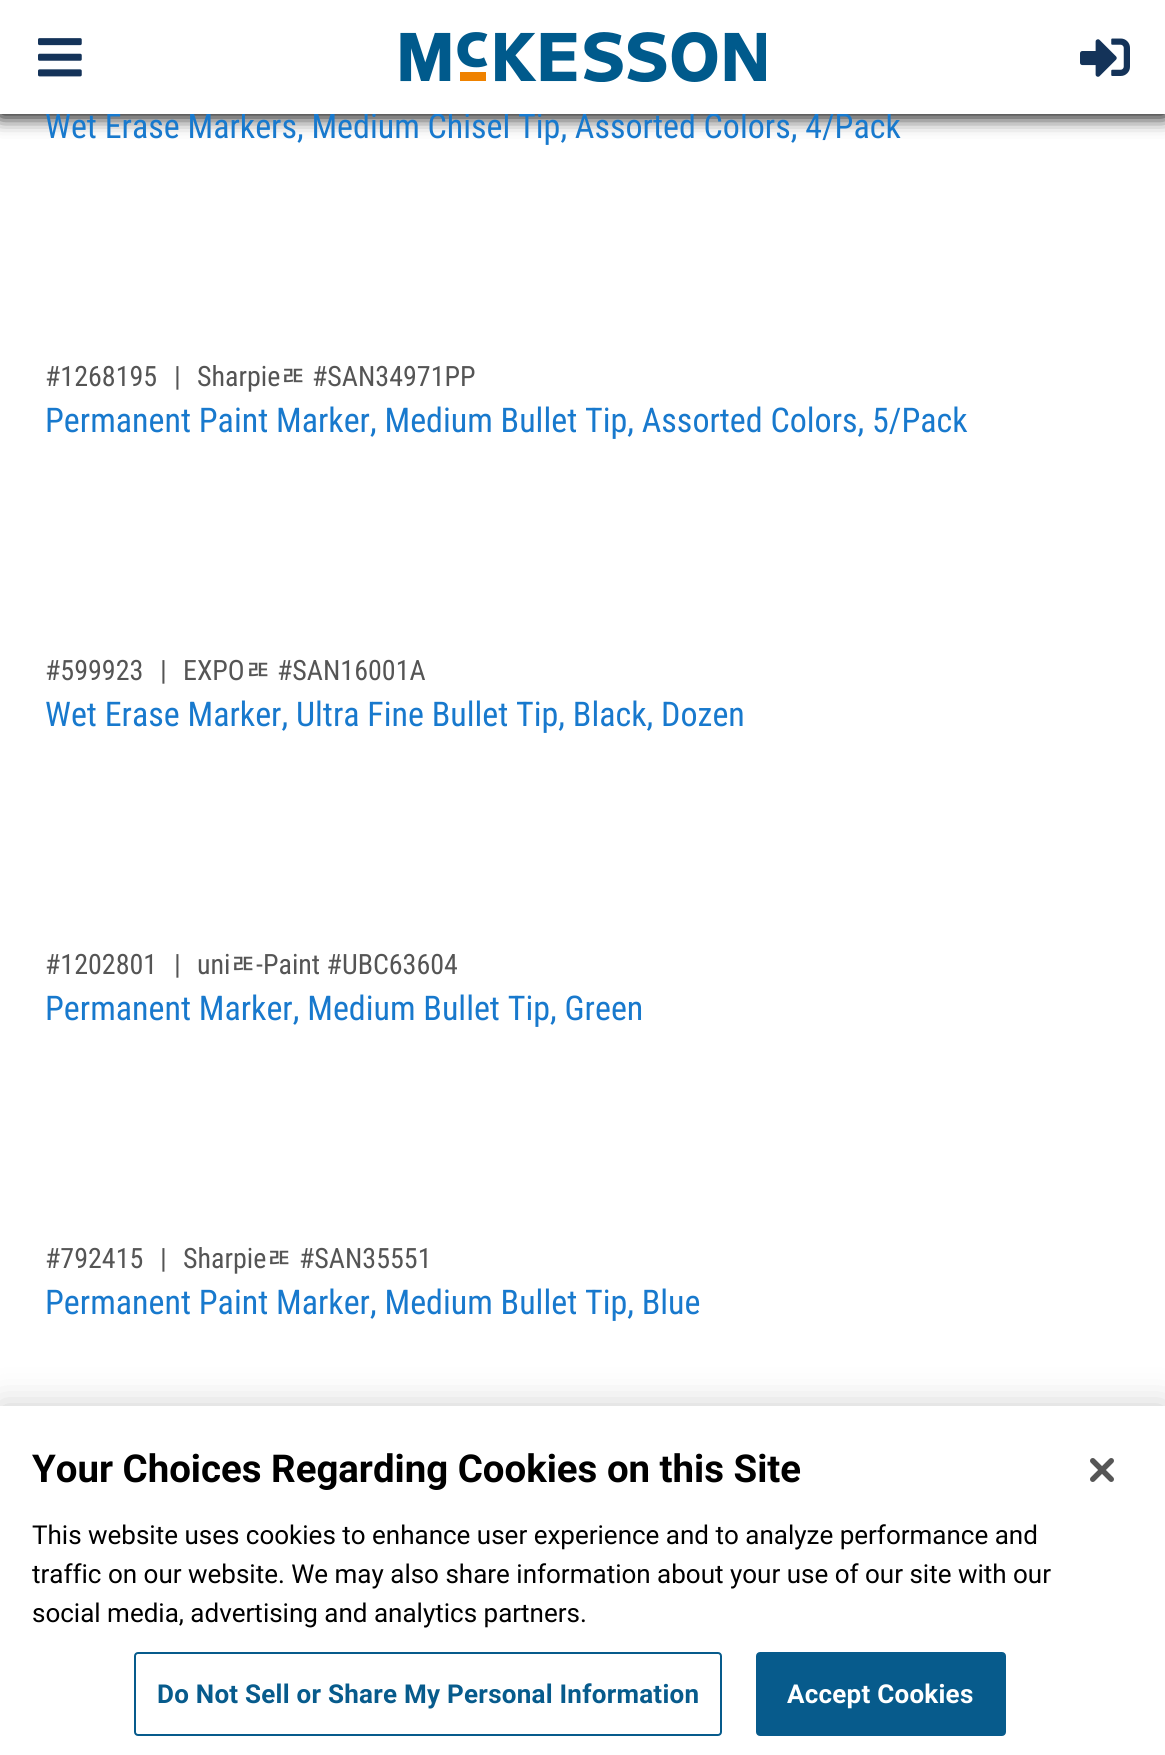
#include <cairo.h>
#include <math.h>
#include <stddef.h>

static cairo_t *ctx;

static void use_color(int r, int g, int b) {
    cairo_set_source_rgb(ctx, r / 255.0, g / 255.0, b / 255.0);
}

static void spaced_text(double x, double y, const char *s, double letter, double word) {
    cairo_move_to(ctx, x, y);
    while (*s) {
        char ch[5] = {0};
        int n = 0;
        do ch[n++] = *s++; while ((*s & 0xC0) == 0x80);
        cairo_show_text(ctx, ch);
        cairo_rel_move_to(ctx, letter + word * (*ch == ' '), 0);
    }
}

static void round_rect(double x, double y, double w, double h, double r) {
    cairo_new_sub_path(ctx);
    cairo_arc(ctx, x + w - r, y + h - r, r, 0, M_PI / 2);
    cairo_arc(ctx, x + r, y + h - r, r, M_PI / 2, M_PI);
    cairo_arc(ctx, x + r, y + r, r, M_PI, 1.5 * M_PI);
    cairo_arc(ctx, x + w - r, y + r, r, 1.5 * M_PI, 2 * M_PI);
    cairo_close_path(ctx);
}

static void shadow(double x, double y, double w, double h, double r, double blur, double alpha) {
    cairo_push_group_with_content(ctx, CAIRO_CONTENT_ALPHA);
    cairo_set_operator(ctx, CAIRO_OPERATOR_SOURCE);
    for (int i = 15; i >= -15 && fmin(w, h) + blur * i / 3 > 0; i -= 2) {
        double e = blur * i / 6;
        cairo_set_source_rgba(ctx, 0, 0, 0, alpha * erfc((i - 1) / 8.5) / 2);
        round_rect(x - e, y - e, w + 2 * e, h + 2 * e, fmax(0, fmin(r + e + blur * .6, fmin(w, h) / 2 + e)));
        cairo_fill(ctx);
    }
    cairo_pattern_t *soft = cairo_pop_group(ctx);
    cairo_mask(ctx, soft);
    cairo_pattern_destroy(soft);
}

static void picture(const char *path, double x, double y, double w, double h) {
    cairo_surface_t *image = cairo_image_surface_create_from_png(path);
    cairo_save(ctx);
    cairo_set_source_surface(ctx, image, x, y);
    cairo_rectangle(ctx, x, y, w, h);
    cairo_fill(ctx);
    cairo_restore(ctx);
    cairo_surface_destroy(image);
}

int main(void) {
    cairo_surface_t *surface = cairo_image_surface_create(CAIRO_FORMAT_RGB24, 1165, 1755);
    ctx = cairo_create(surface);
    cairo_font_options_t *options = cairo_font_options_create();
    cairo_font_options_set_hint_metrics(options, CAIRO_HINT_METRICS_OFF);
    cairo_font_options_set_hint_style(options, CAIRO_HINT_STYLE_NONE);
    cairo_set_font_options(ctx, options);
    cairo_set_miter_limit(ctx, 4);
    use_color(255, 255, 255);
    cairo_paint(ctx);
    use_color(0, 0, 0);
    shadow(0, 0, 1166, 114, 0, 10, 0.5);
    shadow(0, 94, 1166, 20, 0, 10, 1);
    cairo_select_font_face(ctx, "Roboto Condensed", CAIRO_FONT_SLANT_NORMAL, CAIRO_FONT_WEIGHT_NORMAL);
    cairo_set_font_size(ctx, 34);
    use_color(24, 121, 205);
    cairo_move_to(ctx, 45, 138);
    cairo_show_text(ctx, "Wet Erase Markers, Medium Chisel Tip, Assorted Colors, 4/Pack");
    use_color(255, 255, 255);
    cairo_rectangle(ctx, 0, 0, 1165, 114);
    cairo_fill(ctx);
    picture("img1.png", 38, 38, 44, 39);
    picture("img2.png", 400, 32, 366, 50);
    picture("img3.png", 1080, 38, 50, 39);
    cairo_set_font_size(ctx, 28);
    use_color(85, 85, 85);
    cairo_move_to(ctx, 45, 386);
    cairo_show_text(ctx, "#1268195");
    cairo_move_to(ctx, 174, 386);
    cairo_show_text(ctx, "|");
    cairo_move_to(ctx, 197, 386);
    cairo_show_text(ctx, "Sharpie");
    cairo_select_font_face(ctx, "Chiron Hei HK", CAIRO_FONT_SLANT_NORMAL, CAIRO_FONT_WEIGHT_NORMAL);
    cairo_move_to(ctx, 280, 386);
    cairo_show_text(ctx, "ﾮ");
    cairo_select_font_face(ctx, "Roboto Condensed", CAIRO_FONT_SLANT_NORMAL, CAIRO_FONT_WEIGHT_NORMAL);
    cairo_move_to(ctx, 312, 386);
    cairo_show_text(ctx, "#SAN34971PP");
    cairo_set_font_size(ctx, 34);
    use_color(24, 121, 205);
    cairo_move_to(ctx, 45, 432);
    cairo_show_text(ctx, "Permanent Paint Marker, Medium Bullet Tip, Assorted Colors, 5/Pack");
    cairo_set_font_size(ctx, 28);
    use_color(85, 85, 85);
    cairo_move_to(ctx, 45, 680);
    cairo_show_text(ctx, "#599923");
    cairo_move_to(ctx, 160, 680);
    cairo_show_text(ctx, "|");
    cairo_move_to(ctx, 183, 680);
    cairo_show_text(ctx, "EXPO");
    cairo_select_font_face(ctx, "Chiron Hei HK", CAIRO_FONT_SLANT_NORMAL, CAIRO_FONT_WEIGHT_NORMAL);
    cairo_move_to(ctx, 245, 680);
    cairo_show_text(ctx, "ﾮ");
    cairo_select_font_face(ctx, "Roboto Condensed", CAIRO_FONT_SLANT_NORMAL, CAIRO_FONT_WEIGHT_NORMAL);
    cairo_move_to(ctx, 277, 680);
    cairo_show_text(ctx, "#SAN16001A");
    cairo_set_font_size(ctx, 34);
    use_color(24, 121, 205);
    cairo_move_to(ctx, 45, 726);
    cairo_show_text(ctx, "Wet Erase Marker, Ultra Fine Bullet Tip, Black, Dozen");
    cairo_set_font_size(ctx, 28);
    use_color(85, 85, 85);
    cairo_move_to(ctx, 45, 974);
    cairo_show_text(ctx, "#1202801");
    cairo_move_to(ctx, 174, 974);
    cairo_show_text(ctx, "|");
    cairo_move_to(ctx, 197, 974);
    cairo_show_text(ctx, "uni");
    cairo_select_font_face(ctx, "Chiron Hei HK", CAIRO_FONT_SLANT_NORMAL, CAIRO_FONT_WEIGHT_NORMAL);
    cairo_move_to(ctx, 230, 974);
    cairo_show_text(ctx, "ﾮ");
    cairo_select_font_face(ctx, "Roboto Condensed", CAIRO_FONT_SLANT_NORMAL, CAIRO_FONT_WEIGHT_NORMAL);
    cairo_move_to(ctx, 256, 974);
    cairo_show_text(ctx, "-Paint #UBC63604");
    cairo_set_font_size(ctx, 34);
    use_color(24, 121, 205);
    cairo_move_to(ctx, 45, 1020);
    cairo_show_text(ctx, "Permanent Marker, Medium Bullet Tip, Green");
    cairo_set_font_size(ctx, 28);
    use_color(85, 85, 85);
    cairo_move_to(ctx, 45, 1268);
    cairo_show_text(ctx, "#792415");
    cairo_move_to(ctx, 160, 1268);
    cairo_show_text(ctx, "|");
    cairo_move_to(ctx, 183, 1268);
    cairo_show_text(ctx, "Sharpie");
    cairo_select_font_face(ctx, "Chiron Hei HK", CAIRO_FONT_SLANT_NORMAL, CAIRO_FONT_WEIGHT_NORMAL);
    cairo_move_to(ctx, 266, 1268);
    cairo_show_text(ctx, "ﾮ");
    cairo_select_font_face(ctx, "Roboto Condensed", CAIRO_FONT_SLANT_NORMAL, CAIRO_FONT_WEIGHT_NORMAL);
    cairo_move_to(ctx, 299, 1268);
    cairo_show_text(ctx, "#SAN35551");
    cairo_set_font_size(ctx, 34);
    use_color(24, 121, 205);
    cairo_move_to(ctx, 45, 1314);
    cairo_show_text(ctx, "Permanent Paint Marker, Medium Bullet Tip, Blue");
    use_color(0, 0, 0);
    shadow(0, 1406, 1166, 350, 0, 18, 0.2);
    use_color(255, 255, 255);
    cairo_rectangle(ctx, 0, 1406, 1165, 349);
    cairo_fill(ctx);
    cairo_select_font_face(ctx, "Roboto", CAIRO_FONT_SLANT_NORMAL, CAIRO_FONT_WEIGHT_BOLD);
    cairo_set_font_size(ctx, 38.4);
    use_color(0, 0, 0);
    cairo_move_to(ctx, 32, 1482);
    cairo_show_text(ctx, "Your Choices Regarding Cookies on this Site");
    cairo_select_font_face(ctx, "Roboto", CAIRO_FONT_SLANT_NORMAL, CAIRO_FONT_WEIGHT_NORMAL);
    cairo_set_font_size(ctx, 26);
    cairo_move_to(ctx, 32, 1544);
    cairo_show_text(ctx, "This website uses cookies to enhance user experience and to analyze performance and");
    cairo_move_to(ctx, 32, 1583);
    cairo_show_text(ctx, "traffic on our website. We may also share information about your use of our site with our");
    cairo_move_to(ctx, 32, 1622);
    cairo_show_text(ctx, "social media, advertising and analytics partners.");
    round_rect(135, 1653, 586, 82, 3);
    use_color(7, 91, 140);
    cairo_stroke(ctx);
    cairo_select_font_face(ctx, "Roboto", CAIRO_FONT_SLANT_NORMAL, CAIRO_FONT_WEIGHT_BOLD);
    spaced_text(157, 1703, "Do Not Sell or Share My Personal Information", 0.25, 0);
    round_rect(757, 1653, 248, 82, 3);
    cairo_fill_preserve(ctx);
    cairo_stroke(ctx);
    use_color(255, 255, 255);
    spaced_text(787, 1703, "Accept Cookies", 0.25, 0);
    picture("img4.png", 1090, 1458, 24, 24);
    cairo_surface_write_to_png(surface, "result.png");
    cairo_font_options_destroy(options);
    cairo_destroy(ctx);
    cairo_surface_destroy(surface);
    return 0;
}
